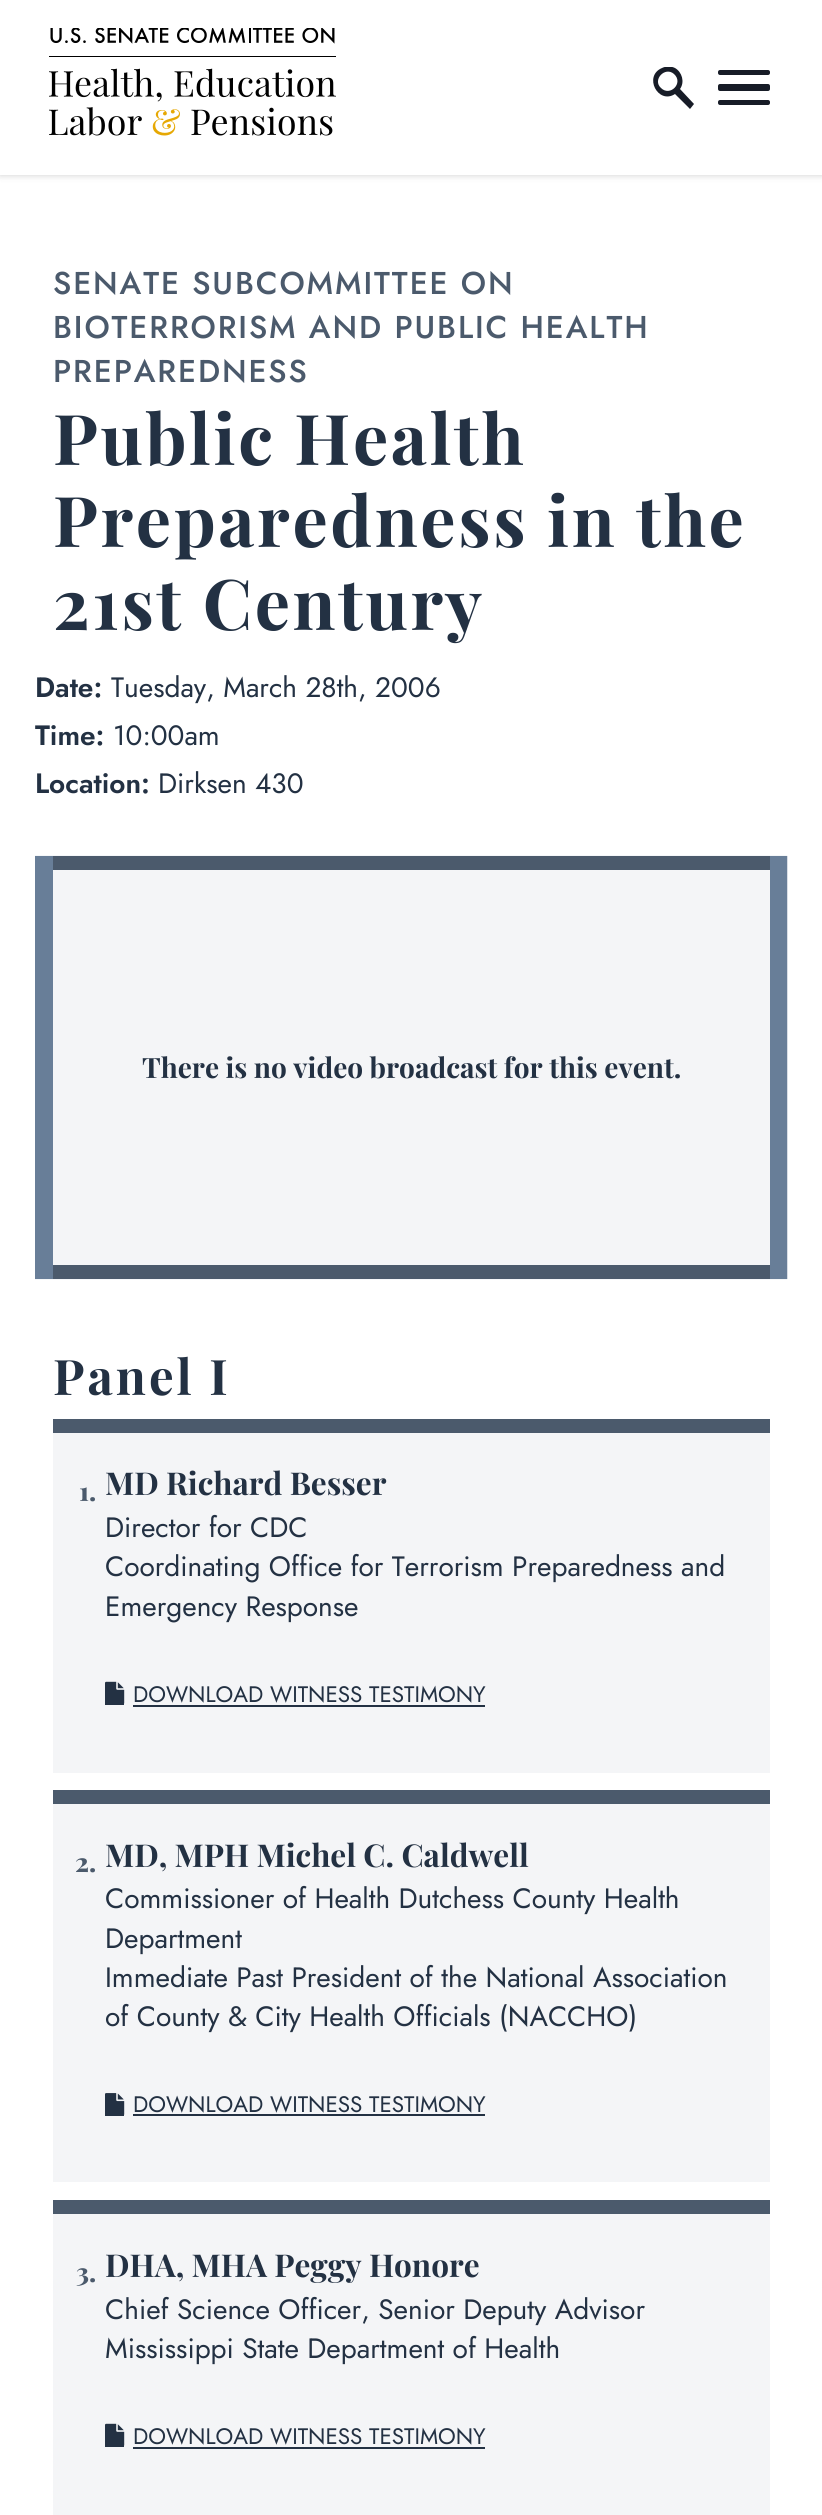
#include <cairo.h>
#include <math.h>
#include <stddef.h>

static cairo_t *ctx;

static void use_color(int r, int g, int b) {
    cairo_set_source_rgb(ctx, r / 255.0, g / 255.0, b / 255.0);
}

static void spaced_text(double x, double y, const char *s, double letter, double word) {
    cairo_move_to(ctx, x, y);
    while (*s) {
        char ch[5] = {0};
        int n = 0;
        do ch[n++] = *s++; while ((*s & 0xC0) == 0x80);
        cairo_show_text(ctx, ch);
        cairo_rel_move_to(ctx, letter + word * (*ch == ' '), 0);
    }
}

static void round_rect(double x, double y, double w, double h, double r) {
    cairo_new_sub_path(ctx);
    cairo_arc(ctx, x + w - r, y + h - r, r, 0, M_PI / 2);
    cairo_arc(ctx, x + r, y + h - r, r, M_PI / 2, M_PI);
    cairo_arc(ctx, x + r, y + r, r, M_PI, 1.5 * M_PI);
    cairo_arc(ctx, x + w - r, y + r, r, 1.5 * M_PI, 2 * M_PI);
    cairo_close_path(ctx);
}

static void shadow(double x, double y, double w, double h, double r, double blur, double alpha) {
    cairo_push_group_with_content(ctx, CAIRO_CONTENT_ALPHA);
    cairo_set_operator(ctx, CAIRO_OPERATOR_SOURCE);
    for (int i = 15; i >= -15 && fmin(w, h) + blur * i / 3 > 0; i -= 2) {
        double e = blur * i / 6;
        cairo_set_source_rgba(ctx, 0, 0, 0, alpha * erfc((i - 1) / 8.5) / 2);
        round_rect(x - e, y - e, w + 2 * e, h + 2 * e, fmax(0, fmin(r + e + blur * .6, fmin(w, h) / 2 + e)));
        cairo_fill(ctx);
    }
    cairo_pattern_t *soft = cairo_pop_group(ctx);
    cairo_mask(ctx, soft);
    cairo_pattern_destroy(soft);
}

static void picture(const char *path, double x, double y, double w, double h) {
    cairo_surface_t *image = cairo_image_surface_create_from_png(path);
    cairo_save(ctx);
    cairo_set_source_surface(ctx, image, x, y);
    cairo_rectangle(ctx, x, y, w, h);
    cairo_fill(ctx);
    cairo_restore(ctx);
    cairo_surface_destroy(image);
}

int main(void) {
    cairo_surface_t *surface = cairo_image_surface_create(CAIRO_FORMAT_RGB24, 822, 2515);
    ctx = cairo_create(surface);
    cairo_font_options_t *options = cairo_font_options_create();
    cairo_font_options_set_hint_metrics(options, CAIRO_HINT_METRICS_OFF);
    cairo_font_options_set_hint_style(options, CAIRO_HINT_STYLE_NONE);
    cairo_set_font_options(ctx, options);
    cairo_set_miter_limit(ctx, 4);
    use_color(255, 255, 255);
    cairo_paint(ctx);
    use_color(0, 0, 0);
    shadow(0, 0, 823, 175, 0, 3.5, 0.2);
    use_color(255, 255, 255);
    cairo_rectangle(ctx, 0, 0, 822, 175);
    cairo_fill(ctx);
    picture("img1.png", 49, 28, 287, 108);
    cairo_save(ctx);
    cairo_rectangle(ctx, 653, 67, 42, 42);
    cairo_clip(ctx);
    use_color(23, 28, 39);
    cairo_new_path(ctx);
    cairo_move_to(ctx, 694, 104);
    cairo_line_to(ctx, 680, 89);
    cairo_curve_to(ctx, 685, 82, 682, 72, 675, 68);
    cairo_curve_to(ctx, 671, 66, 666, 66, 662, 68);
    cairo_curve_to(ctx, 643, 76, 658, 105, 675, 94);
    cairo_line_to(ctx, 690, 109);
    cairo_close_path(ctx);
    cairo_move_to(ctx, 661, 88);
    cairo_curve_to(ctx, 652, 80, 665, 66, 674, 74);
    cairo_curve_to(ctx, 684, 83, 670, 97, 661, 88);
    cairo_close_path(ctx);
    cairo_fill(ctx);
    cairo_restore(ctx);
    use_color(23, 28, 39);
    round_rect(718, 70, 52, 5, 2);
    cairo_fill(ctx);
    round_rect(718, 84, 52, 7, 2);
    cairo_fill(ctx);
    round_rect(718, 100, 52, 5, 2);
    cairo_fill(ctx);
    cairo_select_font_face(ctx, "Jost Medium", CAIRO_FONT_SLANT_NORMAL, CAIRO_FONT_WEIGHT_NORMAL);
    cairo_set_font_size(ctx, 31.5);
    use_color(75, 90, 108);
    spaced_text(53, 294, "SENATE SUBCOMMITTEE ON", 1.9, 0);
    spaced_text(53, 338, "BIOTERRORISM AND PUBLIC HEALTH", 1.9, 0);
    spaced_text(53, 382, "PREPAREDNESS", 1.9, 0);
    cairo_select_font_face(ctx, "Playfair Display", CAIRO_FONT_SLANT_NORMAL, CAIRO_FONT_WEIGHT_BOLD);
    cairo_set_font_size(ctx, 70);
    use_color(35, 49, 67);
    spaced_text(53, 465, "Public Health", 2.6, 0);
    spaced_text(53, 547, "Preparedness in the", 2.6, 0);
    spaced_text(53, 630, "21st Century", 2.6, 0);
    cairo_select_font_face(ctx, "Jost SemiBold", CAIRO_FONT_SLANT_NORMAL, CAIRO_FONT_WEIGHT_NORMAL);
    cairo_set_font_size(ctx, 28);
    cairo_move_to(ctx, 35, 697);
    cairo_show_text(ctx, "Date:");
    cairo_select_font_face(ctx, "Jost", CAIRO_FONT_SLANT_NORMAL, CAIRO_FONT_WEIGHT_NORMAL);
    cairo_move_to(ctx, 111, 697);
    cairo_show_text(ctx, "Tuesday, March 28th, 2006");
    cairo_select_font_face(ctx, "Jost SemiBold", CAIRO_FONT_SLANT_NORMAL, CAIRO_FONT_WEIGHT_NORMAL);
    cairo_move_to(ctx, 35, 745);
    cairo_show_text(ctx, "Time:");
    cairo_select_font_face(ctx, "Jost", CAIRO_FONT_SLANT_NORMAL, CAIRO_FONT_WEIGHT_NORMAL);
    cairo_move_to(ctx, 113, 745);
    cairo_show_text(ctx, "10:00am");
    cairo_select_font_face(ctx, "Jost SemiBold", CAIRO_FONT_SLANT_NORMAL, CAIRO_FONT_WEIGHT_NORMAL);
    cairo_move_to(ctx, 35, 793);
    cairo_show_text(ctx, "Location:");
    cairo_select_font_face(ctx, "Jost", CAIRO_FONT_SLANT_NORMAL, CAIRO_FONT_WEIGHT_NORMAL);
    cairo_move_to(ctx, 158, 793);
    cairo_show_text(ctx, "Dirksen 430");
    picture("img2.png", 35, 855, 753, 425);
    use_color(244, 245, 247);
    cairo_rectangle(ctx, 53, 870, 717, 395);
    cairo_fill(ctx);
    use_color(75, 90, 108);
    cairo_rectangle(ctx, 53, 856, 717, 14);
    cairo_fill(ctx);
    cairo_rectangle(ctx, 53, 1265, 717, 14);
    cairo_fill(ctx);
    cairo_select_font_face(ctx, "Playfair Display", CAIRO_FONT_SLANT_NORMAL, CAIRO_FONT_WEIGHT_BOLD);
    use_color(35, 49, 67);
    cairo_move_to(ctx, 142, 1078);
    cairo_show_text(ctx, "There is no video broadcast for this event.");
    cairo_set_font_size(ctx, 49);
    spaced_text(53, 1395, "Panel I", 3, 0);
    use_color(244, 245, 247);
    cairo_rectangle(ctx, 53, 1433, 717, 340);
    cairo_fill(ctx);
    use_color(75, 90, 108);
    cairo_rectangle(ctx, 53, 1419, 717, 14);
    cairo_fill(ctx);
    cairo_select_font_face(ctx, "Playfair Display ExtraBold", CAIRO_FONT_SLANT_NORMAL, CAIRO_FONT_WEIGHT_NORMAL);
    cairo_set_font_size(ctx, 26);
    cairo_move_to(ctx, 79, 1501);
    cairo_show_text(ctx, "1.");
    cairo_select_font_face(ctx, "Playfair Display", CAIRO_FONT_SLANT_NORMAL, CAIRO_FONT_WEIGHT_BOLD);
    cairo_set_font_size(ctx, 31.5);
    use_color(35, 49, 67);
    cairo_move_to(ctx, 105, 1495);
    cairo_show_text(ctx, "MD Richard Besser");
    cairo_select_font_face(ctx, "Jost", CAIRO_FONT_SLANT_NORMAL, CAIRO_FONT_WEIGHT_NORMAL);
    cairo_set_font_size(ctx, 28);
    cairo_move_to(ctx, 105, 1537);
    cairo_show_text(ctx, "Director for CDC");
    cairo_move_to(ctx, 105, 1576);
    cairo_show_text(ctx, "Coordinating Office for Terrorism Preparedness and");
    cairo_move_to(ctx, 105, 1616);
    cairo_show_text(ctx, "Emergency Response");
    cairo_rectangle(ctx, 105, 1703, 19, 2);
    cairo_fill(ctx);
    picture("img3.png", 105, 1681, 20, 23);
    cairo_set_font_size(ctx, 22.4);
    cairo_move_to(ctx, 133, 1702);
    cairo_show_text(ctx, "DOWNLOAD WITNESS TESTIMONY");
    cairo_rectangle(ctx, 133, 1705, 352, 2);
    cairo_fill(ctx);
    use_color(244, 245, 247);
    cairo_rectangle(ctx, 53, 1804, 717, 378);
    cairo_fill(ctx);
    use_color(75, 90, 108);
    cairo_rectangle(ctx, 53, 1790, 717, 14);
    cairo_fill(ctx);
    cairo_select_font_face(ctx, "Playfair Display ExtraBold", CAIRO_FONT_SLANT_NORMAL, CAIRO_FONT_WEIGHT_NORMAL);
    cairo_set_font_size(ctx, 26);
    cairo_move_to(ctx, 75, 1872);
    cairo_show_text(ctx, "2.");
    cairo_select_font_face(ctx, "Playfair Display", CAIRO_FONT_SLANT_NORMAL, CAIRO_FONT_WEIGHT_BOLD);
    cairo_set_font_size(ctx, 31.5);
    use_color(35, 49, 67);
    cairo_move_to(ctx, 105, 1867);
    cairo_show_text(ctx, "MD, MPH Michel C. Caldwell");
    cairo_select_font_face(ctx, "Jost", CAIRO_FONT_SLANT_NORMAL, CAIRO_FONT_WEIGHT_NORMAL);
    cairo_set_font_size(ctx, 28);
    cairo_move_to(ctx, 105, 1908);
    cairo_show_text(ctx, "Commissioner of Health Dutchess County Health");
    cairo_move_to(ctx, 105, 1948);
    cairo_show_text(ctx, "Department");
    cairo_move_to(ctx, 105, 1987);
    cairo_show_text(ctx, "Immediate Past President of the National Association");
    cairo_move_to(ctx, 105, 2026);
    cairo_show_text(ctx, "of County & City Health Officials (NACCHO)");
    cairo_rectangle(ctx, 105, 2114, 19, 2);
    cairo_fill(ctx);
    picture("img4.png", 105, 2093, 20, 22);
    cairo_set_font_size(ctx, 22.4);
    cairo_move_to(ctx, 133, 2112);
    cairo_show_text(ctx, "DOWNLOAD WITNESS TESTIMONY");
    cairo_rectangle(ctx, 133, 2114, 352, 2);
    cairo_fill(ctx);
    use_color(244, 245, 247);
    cairo_rectangle(ctx, 53, 2214, 717, 301);
    cairo_fill(ctx);
    use_color(75, 90, 108);
    cairo_rectangle(ctx, 53, 2200, 717, 14);
    cairo_fill(ctx);
    cairo_select_font_face(ctx, "Playfair Display ExtraBold", CAIRO_FONT_SLANT_NORMAL, CAIRO_FONT_WEIGHT_NORMAL);
    cairo_set_font_size(ctx, 26);
    cairo_move_to(ctx, 76, 2282);
    cairo_show_text(ctx, "3.");
    cairo_select_font_face(ctx, "Playfair Display", CAIRO_FONT_SLANT_NORMAL, CAIRO_FONT_WEIGHT_BOLD);
    cairo_set_font_size(ctx, 31.5);
    use_color(35, 49, 67);
    cairo_move_to(ctx, 105, 2277);
    cairo_show_text(ctx, "DHA, MHA Peggy Honore");
    cairo_select_font_face(ctx, "Jost", CAIRO_FONT_SLANT_NORMAL, CAIRO_FONT_WEIGHT_NORMAL);
    cairo_set_font_size(ctx, 28);
    cairo_move_to(ctx, 105, 2319);
    cairo_show_text(ctx, "Chief Science Officer, Senior Deputy Advisor");
    cairo_move_to(ctx, 105, 2358);
    cairo_show_text(ctx, "Mississippi State Department of Health");
    cairo_rectangle(ctx, 105, 2445, 19, 2);
    cairo_fill(ctx);
    picture("img3.png", 105, 2423, 20, 23);
    cairo_set_font_size(ctx, 22.4);
    cairo_move_to(ctx, 133, 2444);
    cairo_show_text(ctx, "DOWNLOAD WITNESS TESTIMONY");
    cairo_rectangle(ctx, 133, 2447, 352, 2);
    cairo_fill(ctx);
    cairo_surface_write_to_png(surface, "result.png");
    cairo_font_options_destroy(options);
    cairo_destroy(ctx);
    cairo_surface_destroy(surface);
    return 0;
}
